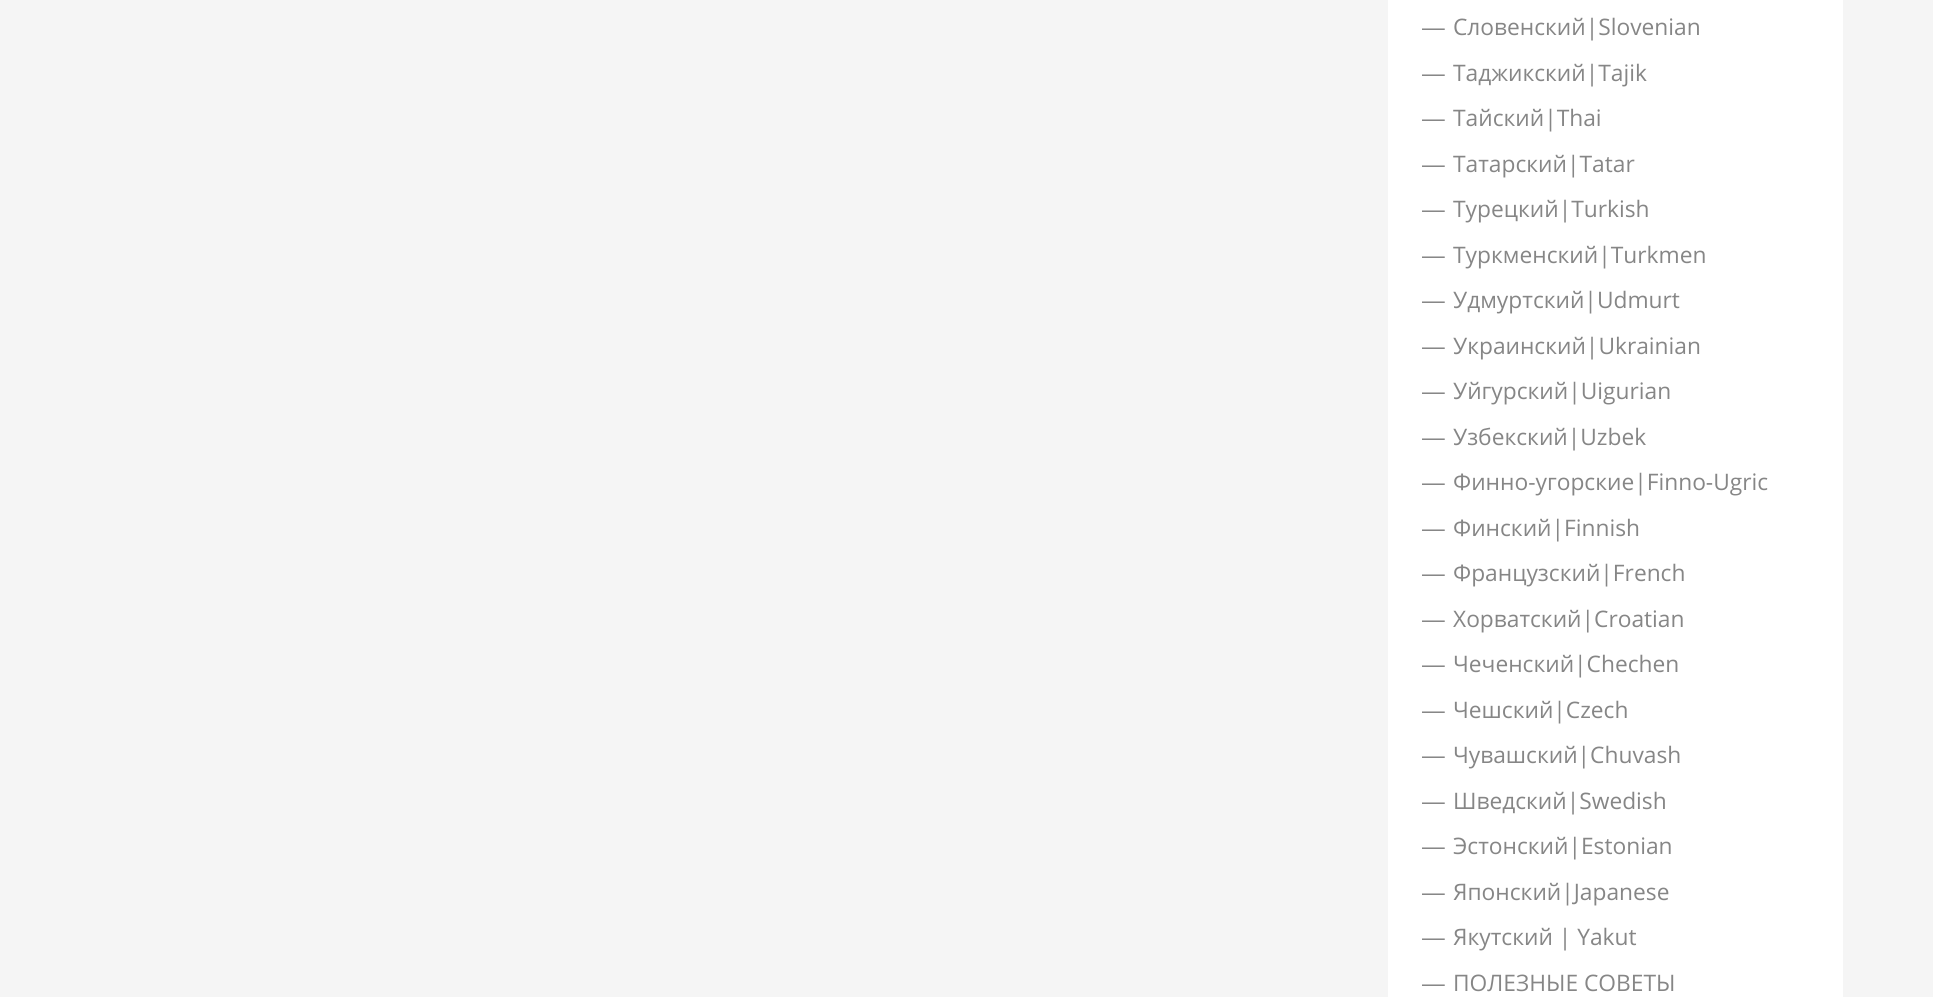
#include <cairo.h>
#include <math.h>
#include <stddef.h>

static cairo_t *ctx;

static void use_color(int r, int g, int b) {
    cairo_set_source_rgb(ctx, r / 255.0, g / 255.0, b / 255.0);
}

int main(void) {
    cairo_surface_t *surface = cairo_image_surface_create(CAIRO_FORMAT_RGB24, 1933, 997);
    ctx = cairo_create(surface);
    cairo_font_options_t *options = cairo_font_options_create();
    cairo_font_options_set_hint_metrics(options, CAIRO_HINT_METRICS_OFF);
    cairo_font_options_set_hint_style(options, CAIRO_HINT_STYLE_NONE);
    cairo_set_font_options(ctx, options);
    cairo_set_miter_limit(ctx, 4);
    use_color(245, 245, 245);
    cairo_paint(ctx);
    use_color(255, 255, 255);
    cairo_rectangle(ctx, 1388, 0, 455, 997);
    cairo_fill(ctx);
    cairo_select_font_face(ctx, "Liberation Sans", CAIRO_FONT_SLANT_NORMAL, CAIRO_FONT_WEIGHT_NORMAL);
    cairo_set_font_size(ctx, 22.75);
    use_color(134, 134, 134);
    cairo_move_to(ctx, 1422, 35);
    cairo_show_text(ctx, "—");
    cairo_select_font_face(ctx, "Open Sans", CAIRO_FONT_SLANT_NORMAL, CAIRO_FONT_WEIGHT_NORMAL);
    cairo_move_to(ctx, 1453, 35);
    cairo_show_text(ctx, "Словенский|Slovenian");
    cairo_select_font_face(ctx, "Liberation Sans", CAIRO_FONT_SLANT_NORMAL, CAIRO_FONT_WEIGHT_NORMAL);
    cairo_move_to(ctx, 1422, 81);
    cairo_show_text(ctx, "—");
    cairo_select_font_face(ctx, "Open Sans", CAIRO_FONT_SLANT_NORMAL, CAIRO_FONT_WEIGHT_NORMAL);
    cairo_move_to(ctx, 1453, 81);
    cairo_show_text(ctx, "Таджикский|Tajik");
    cairo_select_font_face(ctx, "Liberation Sans", CAIRO_FONT_SLANT_NORMAL, CAIRO_FONT_WEIGHT_NORMAL);
    cairo_move_to(ctx, 1422, 126);
    cairo_show_text(ctx, "—");
    cairo_select_font_face(ctx, "Open Sans", CAIRO_FONT_SLANT_NORMAL, CAIRO_FONT_WEIGHT_NORMAL);
    cairo_move_to(ctx, 1453, 126);
    cairo_show_text(ctx, "Тайский|Thai");
    cairo_select_font_face(ctx, "Liberation Sans", CAIRO_FONT_SLANT_NORMAL, CAIRO_FONT_WEIGHT_NORMAL);
    cairo_move_to(ctx, 1422, 172);
    cairo_show_text(ctx, "—");
    cairo_select_font_face(ctx, "Open Sans", CAIRO_FONT_SLANT_NORMAL, CAIRO_FONT_WEIGHT_NORMAL);
    cairo_move_to(ctx, 1453, 172);
    cairo_show_text(ctx, "Татарский|Tatar");
    cairo_select_font_face(ctx, "Liberation Sans", CAIRO_FONT_SLANT_NORMAL, CAIRO_FONT_WEIGHT_NORMAL);
    cairo_move_to(ctx, 1422, 217);
    cairo_show_text(ctx, "—");
    cairo_select_font_face(ctx, "Open Sans", CAIRO_FONT_SLANT_NORMAL, CAIRO_FONT_WEIGHT_NORMAL);
    cairo_move_to(ctx, 1453, 217);
    cairo_show_text(ctx, "Турецкий|Turkish");
    cairo_select_font_face(ctx, "Liberation Sans", CAIRO_FONT_SLANT_NORMAL, CAIRO_FONT_WEIGHT_NORMAL);
    cairo_move_to(ctx, 1422, 263);
    cairo_show_text(ctx, "—");
    cairo_select_font_face(ctx, "Open Sans", CAIRO_FONT_SLANT_NORMAL, CAIRO_FONT_WEIGHT_NORMAL);
    cairo_move_to(ctx, 1453, 263);
    cairo_show_text(ctx, "Туркменский|Turkmen");
    cairo_select_font_face(ctx, "Liberation Sans", CAIRO_FONT_SLANT_NORMAL, CAIRO_FONT_WEIGHT_NORMAL);
    cairo_move_to(ctx, 1422, 308);
    cairo_show_text(ctx, "—");
    cairo_select_font_face(ctx, "Open Sans", CAIRO_FONT_SLANT_NORMAL, CAIRO_FONT_WEIGHT_NORMAL);
    cairo_move_to(ctx, 1453, 308);
    cairo_show_text(ctx, "Удмуртский|Udmurt");
    cairo_select_font_face(ctx, "Liberation Sans", CAIRO_FONT_SLANT_NORMAL, CAIRO_FONT_WEIGHT_NORMAL);
    cairo_move_to(ctx, 1422, 354);
    cairo_show_text(ctx, "—");
    cairo_select_font_face(ctx, "Open Sans", CAIRO_FONT_SLANT_NORMAL, CAIRO_FONT_WEIGHT_NORMAL);
    cairo_move_to(ctx, 1453, 354);
    cairo_show_text(ctx, "Украинский|Ukrainian");
    cairo_select_font_face(ctx, "Liberation Sans", CAIRO_FONT_SLANT_NORMAL, CAIRO_FONT_WEIGHT_NORMAL);
    cairo_move_to(ctx, 1422, 399);
    cairo_show_text(ctx, "—");
    cairo_select_font_face(ctx, "Open Sans", CAIRO_FONT_SLANT_NORMAL, CAIRO_FONT_WEIGHT_NORMAL);
    cairo_move_to(ctx, 1453, 399);
    cairo_show_text(ctx, "Уйгурский|Uigurian");
    cairo_select_font_face(ctx, "Liberation Sans", CAIRO_FONT_SLANT_NORMAL, CAIRO_FONT_WEIGHT_NORMAL);
    cairo_move_to(ctx, 1422, 445);
    cairo_show_text(ctx, "—");
    cairo_select_font_face(ctx, "Open Sans", CAIRO_FONT_SLANT_NORMAL, CAIRO_FONT_WEIGHT_NORMAL);
    cairo_move_to(ctx, 1453, 445);
    cairo_show_text(ctx, "Узбекский|Uzbek");
    cairo_select_font_face(ctx, "Liberation Sans", CAIRO_FONT_SLANT_NORMAL, CAIRO_FONT_WEIGHT_NORMAL);
    cairo_move_to(ctx, 1422, 490);
    cairo_show_text(ctx, "—");
    cairo_select_font_face(ctx, "Open Sans", CAIRO_FONT_SLANT_NORMAL, CAIRO_FONT_WEIGHT_NORMAL);
    cairo_move_to(ctx, 1453, 490);
    cairo_show_text(ctx, "Финно-угорские|Finno-Ugric");
    cairo_select_font_face(ctx, "Liberation Sans", CAIRO_FONT_SLANT_NORMAL, CAIRO_FONT_WEIGHT_NORMAL);
    cairo_move_to(ctx, 1422, 536);
    cairo_show_text(ctx, "—");
    cairo_select_font_face(ctx, "Open Sans", CAIRO_FONT_SLANT_NORMAL, CAIRO_FONT_WEIGHT_NORMAL);
    cairo_move_to(ctx, 1453, 536);
    cairo_show_text(ctx, "Финский|Finnish");
    cairo_select_font_face(ctx, "Liberation Sans", CAIRO_FONT_SLANT_NORMAL, CAIRO_FONT_WEIGHT_NORMAL);
    cairo_move_to(ctx, 1422, 581);
    cairo_show_text(ctx, "—");
    cairo_select_font_face(ctx, "Open Sans", CAIRO_FONT_SLANT_NORMAL, CAIRO_FONT_WEIGHT_NORMAL);
    cairo_move_to(ctx, 1453, 581);
    cairo_show_text(ctx, "Французский|French");
    cairo_select_font_face(ctx, "Liberation Sans", CAIRO_FONT_SLANT_NORMAL, CAIRO_FONT_WEIGHT_NORMAL);
    cairo_move_to(ctx, 1422, 627);
    cairo_show_text(ctx, "—");
    cairo_select_font_face(ctx, "Open Sans", CAIRO_FONT_SLANT_NORMAL, CAIRO_FONT_WEIGHT_NORMAL);
    cairo_move_to(ctx, 1453, 627);
    cairo_show_text(ctx, "Хорватский|Croatian");
    cairo_select_font_face(ctx, "Liberation Sans", CAIRO_FONT_SLANT_NORMAL, CAIRO_FONT_WEIGHT_NORMAL);
    cairo_move_to(ctx, 1422, 672);
    cairo_show_text(ctx, "—");
    cairo_select_font_face(ctx, "Open Sans", CAIRO_FONT_SLANT_NORMAL, CAIRO_FONT_WEIGHT_NORMAL);
    cairo_move_to(ctx, 1453, 672);
    cairo_show_text(ctx, "Чеченский|Chechen");
    cairo_select_font_face(ctx, "Liberation Sans", CAIRO_FONT_SLANT_NORMAL, CAIRO_FONT_WEIGHT_NORMAL);
    cairo_move_to(ctx, 1422, 718);
    cairo_show_text(ctx, "—");
    cairo_select_font_face(ctx, "Open Sans", CAIRO_FONT_SLANT_NORMAL, CAIRO_FONT_WEIGHT_NORMAL);
    cairo_move_to(ctx, 1453, 718);
    cairo_show_text(ctx, "Чешский|Czech");
    cairo_select_font_face(ctx, "Liberation Sans", CAIRO_FONT_SLANT_NORMAL, CAIRO_FONT_WEIGHT_NORMAL);
    cairo_move_to(ctx, 1422, 763);
    cairo_show_text(ctx, "—");
    cairo_select_font_face(ctx, "Open Sans", CAIRO_FONT_SLANT_NORMAL, CAIRO_FONT_WEIGHT_NORMAL);
    cairo_move_to(ctx, 1453, 763);
    cairo_show_text(ctx, "Чувашский|Chuvash");
    cairo_select_font_face(ctx, "Liberation Sans", CAIRO_FONT_SLANT_NORMAL, CAIRO_FONT_WEIGHT_NORMAL);
    cairo_move_to(ctx, 1422, 809);
    cairo_show_text(ctx, "—");
    cairo_select_font_face(ctx, "Open Sans", CAIRO_FONT_SLANT_NORMAL, CAIRO_FONT_WEIGHT_NORMAL);
    cairo_move_to(ctx, 1453, 809);
    cairo_show_text(ctx, "Шведский|Swedish");
    cairo_select_font_face(ctx, "Liberation Sans", CAIRO_FONT_SLANT_NORMAL, CAIRO_FONT_WEIGHT_NORMAL);
    cairo_move_to(ctx, 1422, 854);
    cairo_show_text(ctx, "—");
    cairo_select_font_face(ctx, "Open Sans", CAIRO_FONT_SLANT_NORMAL, CAIRO_FONT_WEIGHT_NORMAL);
    cairo_move_to(ctx, 1453, 854);
    cairo_show_text(ctx, "Эстонский|Estonian");
    cairo_select_font_face(ctx, "Liberation Sans", CAIRO_FONT_SLANT_NORMAL, CAIRO_FONT_WEIGHT_NORMAL);
    cairo_move_to(ctx, 1422, 900);
    cairo_show_text(ctx, "—");
    cairo_select_font_face(ctx, "Open Sans", CAIRO_FONT_SLANT_NORMAL, CAIRO_FONT_WEIGHT_NORMAL);
    cairo_move_to(ctx, 1453, 900);
    cairo_show_text(ctx, "Японский|Japanese");
    cairo_select_font_face(ctx, "Liberation Sans", CAIRO_FONT_SLANT_NORMAL, CAIRO_FONT_WEIGHT_NORMAL);
    cairo_move_to(ctx, 1422, 945);
    cairo_show_text(ctx, "—");
    cairo_select_font_face(ctx, "Open Sans", CAIRO_FONT_SLANT_NORMAL, CAIRO_FONT_WEIGHT_NORMAL);
    cairo_move_to(ctx, 1453, 945);
    cairo_show_text(ctx, "Якутский | Yakut");
    cairo_select_font_face(ctx, "Liberation Sans", CAIRO_FONT_SLANT_NORMAL, CAIRO_FONT_WEIGHT_NORMAL);
    cairo_move_to(ctx, 1422, 991);
    cairo_show_text(ctx, "—");
    cairo_select_font_face(ctx, "Open Sans", CAIRO_FONT_SLANT_NORMAL, CAIRO_FONT_WEIGHT_NORMAL);
    cairo_move_to(ctx, 1453, 991);
    cairo_show_text(ctx, "ПОЛЕЗНЫЕ СОВЕТЫ");
    cairo_surface_write_to_png(surface, "result.png");
    cairo_font_options_destroy(options);
    cairo_destroy(ctx);
    cairo_surface_destroy(surface);
    return 0;
}
